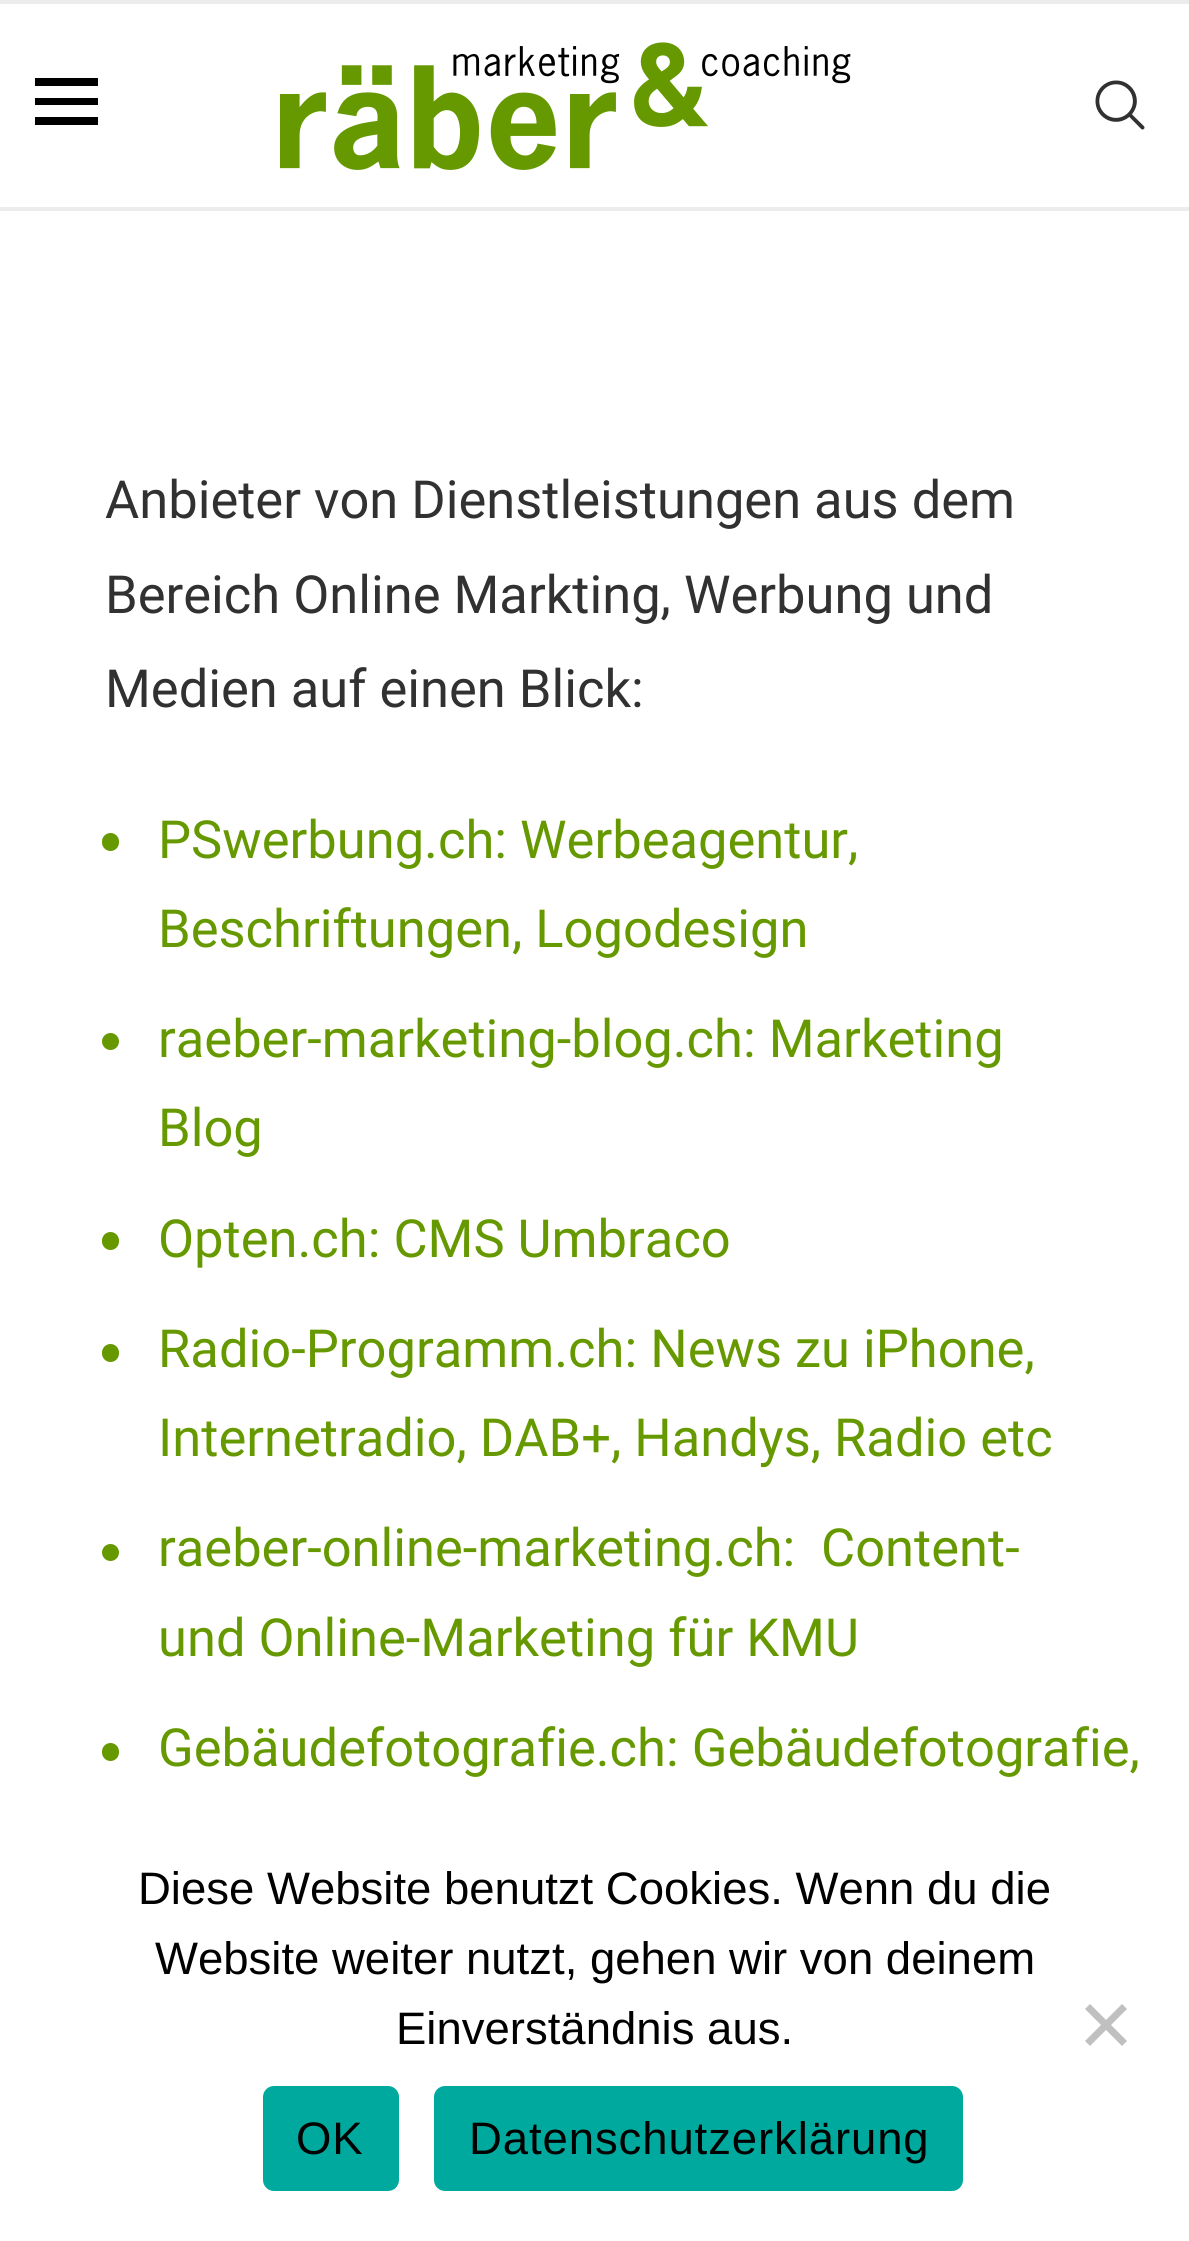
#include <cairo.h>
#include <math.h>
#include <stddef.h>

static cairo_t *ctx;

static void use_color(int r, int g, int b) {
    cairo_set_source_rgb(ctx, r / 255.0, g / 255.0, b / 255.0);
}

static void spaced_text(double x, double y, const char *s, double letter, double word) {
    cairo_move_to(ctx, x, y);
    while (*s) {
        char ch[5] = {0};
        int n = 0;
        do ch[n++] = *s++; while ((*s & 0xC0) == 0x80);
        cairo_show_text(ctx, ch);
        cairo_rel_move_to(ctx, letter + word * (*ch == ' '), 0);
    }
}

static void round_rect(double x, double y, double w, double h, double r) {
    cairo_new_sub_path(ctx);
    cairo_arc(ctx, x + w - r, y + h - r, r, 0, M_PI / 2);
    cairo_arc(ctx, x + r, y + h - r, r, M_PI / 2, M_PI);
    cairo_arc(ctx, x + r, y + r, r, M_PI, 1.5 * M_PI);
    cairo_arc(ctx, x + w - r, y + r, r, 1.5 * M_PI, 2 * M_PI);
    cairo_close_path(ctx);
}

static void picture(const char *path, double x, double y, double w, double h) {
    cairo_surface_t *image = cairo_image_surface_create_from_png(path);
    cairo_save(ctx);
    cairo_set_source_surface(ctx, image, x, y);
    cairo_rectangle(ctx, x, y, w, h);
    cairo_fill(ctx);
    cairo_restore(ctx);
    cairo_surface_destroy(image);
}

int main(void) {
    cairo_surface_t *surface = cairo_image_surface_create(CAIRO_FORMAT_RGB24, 1189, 2241);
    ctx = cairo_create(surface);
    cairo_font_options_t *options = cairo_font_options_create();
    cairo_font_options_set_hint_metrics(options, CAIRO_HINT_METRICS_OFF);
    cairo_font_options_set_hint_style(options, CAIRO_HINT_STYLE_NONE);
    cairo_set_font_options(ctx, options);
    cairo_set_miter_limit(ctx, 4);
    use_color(255, 255, 255);
    cairo_paint(ctx);
    use_color(236, 236, 236);
    cairo_rectangle(ctx, 0, 0, 1189, 4);
    cairo_fill(ctx);
    cairo_rectangle(ctx, 0, 207, 1189, 4);
    cairo_fill(ctx);
    use_color(0, 0, 0);
    cairo_rectangle(ctx, 35, 78, 63, 8);
    cairo_fill(ctx);
    cairo_rectangle(ctx, 35, 98, 63, 7);
    cairo_fill(ctx);
    cairo_rectangle(ctx, 35, 117, 63, 8);
    cairo_fill(ctx);
    picture("img1.png", 280, 42, 571, 128);
    picture("img2.png", 1095, 80, 50, 50);
    cairo_select_font_face(ctx, "Roboto", CAIRO_FONT_SLANT_NORMAL, CAIRO_FONT_WEIGHT_NORMAL);
    cairo_set_font_size(ctx, 52.5);
    use_color(49, 49, 49);
    cairo_move_to(ctx, 105, 518);
    cairo_show_text(ctx, "Anbieter von Dienstleistungen aus dem");
    cairo_move_to(ctx, 105, 613);
    cairo_show_text(ctx, "Bereich Online Markting, Werbung und");
    cairo_move_to(ctx, 105, 707);
    cairo_show_text(ctx, "Medien auf einen Blick:");
    use_color(102, 153, 0);
    round_rect(102, 833, 17, 18, 8.5);
    cairo_fill(ctx);
    cairo_move_to(ctx, 158, 858);
    cairo_show_text(ctx, "PSwerbung.ch: Werbeagentur,");
    cairo_move_to(ctx, 158, 947);
    cairo_show_text(ctx, "Beschriftungen, Logodesign");
    cairo_new_path(ctx);
    cairo_arc(ctx, 110.5, 1041.5, 8.5, 0, 2 * M_PI);
    cairo_fill(ctx);
    cairo_move_to(ctx, 158, 1057);
    cairo_show_text(ctx, "raeber-marketing-blog.ch: Marketing");
    cairo_move_to(ctx, 158, 1146);
    cairo_show_text(ctx, "Blog");
    round_rect(102, 1232, 17, 18, 8.5);
    cairo_fill(ctx);
    cairo_move_to(ctx, 158, 1257);
    cairo_show_text(ctx, "Opten.ch: CMS Umbraco");
    round_rect(102, 1344, 17, 18, 8.5);
    cairo_fill(ctx);
    cairo_move_to(ctx, 158, 1367);
    cairo_show_text(ctx, "Radio-Programm.ch: News zu iPhone,");
    cairo_move_to(ctx, 158, 1456);
    cairo_show_text(ctx, "Internetradio, DAB+, Handys, Radio etc");
    cairo_new_path(ctx);
    cairo_arc(ctx, 110.5, 1552.5, 8.5, 0, 2 * M_PI);
    cairo_fill(ctx);
    cairo_move_to(ctx, 158, 1566);
    cairo_show_text(ctx, "raeber-online-marketing.ch:");
    cairo_move_to(ctx, 821, 1566);
    cairo_show_text(ctx, "Content-");
    cairo_move_to(ctx, 158, 1656);
    cairo_show_text(ctx, "und Online-Marketing für KMU");
    round_rect(102, 1743, 17, 18, 8.5);
    cairo_fill(ctx);
    cairo_move_to(ctx, 158, 1766);
    cairo_show_text(ctx, "Gebäudefotografie.ch: Gebäudefotografie,");
    cairo_select_font_face(ctx, "Liberation Sans", CAIRO_FONT_SLANT_NORMAL, CAIRO_FONT_WEIGHT_NORMAL);
    cairo_set_font_size(ctx, 45.5);
    use_color(0, 0, 0);
    cairo_move_to(ctx, 138, 1904);
    cairo_show_text(ctx, "Diese Website benutzt Cookies. Wenn du die");
    cairo_move_to(ctx, 155, 1974);
    cairo_show_text(ctx, "Website weiter nutzt, gehen wir von deinem");
    cairo_move_to(ctx, 396, 2044);
    cairo_show_text(ctx, "Einverständnis aus.");
    use_color(192, 192, 192);
    cairo_new_path(ctx);
    cairo_move_to(ctx, 1122, 2004);
    cairo_line_to(ctx, 1127, 2009);
    cairo_line_to(ctx, 1090, 2046);
    cairo_line_to(ctx, 1085, 2041);
    cairo_close_path(ctx);
    cairo_fill(ctx);
    cairo_new_path(ctx);
    cairo_move_to(ctx, 1085, 2009);
    cairo_line_to(ctx, 1090, 2004);
    cairo_line_to(ctx, 1127, 2041);
    cairo_line_to(ctx, 1122, 2046);
    cairo_close_path(ctx);
    cairo_fill(ctx);
    use_color(0, 169, 157);
    round_rect(263, 2086, 136, 105, 11);
    cairo_fill(ctx);
    use_color(0, 0, 0);
    spaced_text(296, 2154, "OK", 0.9, 0);
    use_color(0, 169, 157);
    round_rect(434, 2086, 529, 105, 11);
    cairo_fill(ctx);
    use_color(0, 0, 0);
    spaced_text(469, 2154, "Datenschutzerklärung", 0.9, 0);
    cairo_surface_write_to_png(surface, "result.png");
    cairo_font_options_destroy(options);
    cairo_destroy(ctx);
    cairo_surface_destroy(surface);
    return 0;
}
